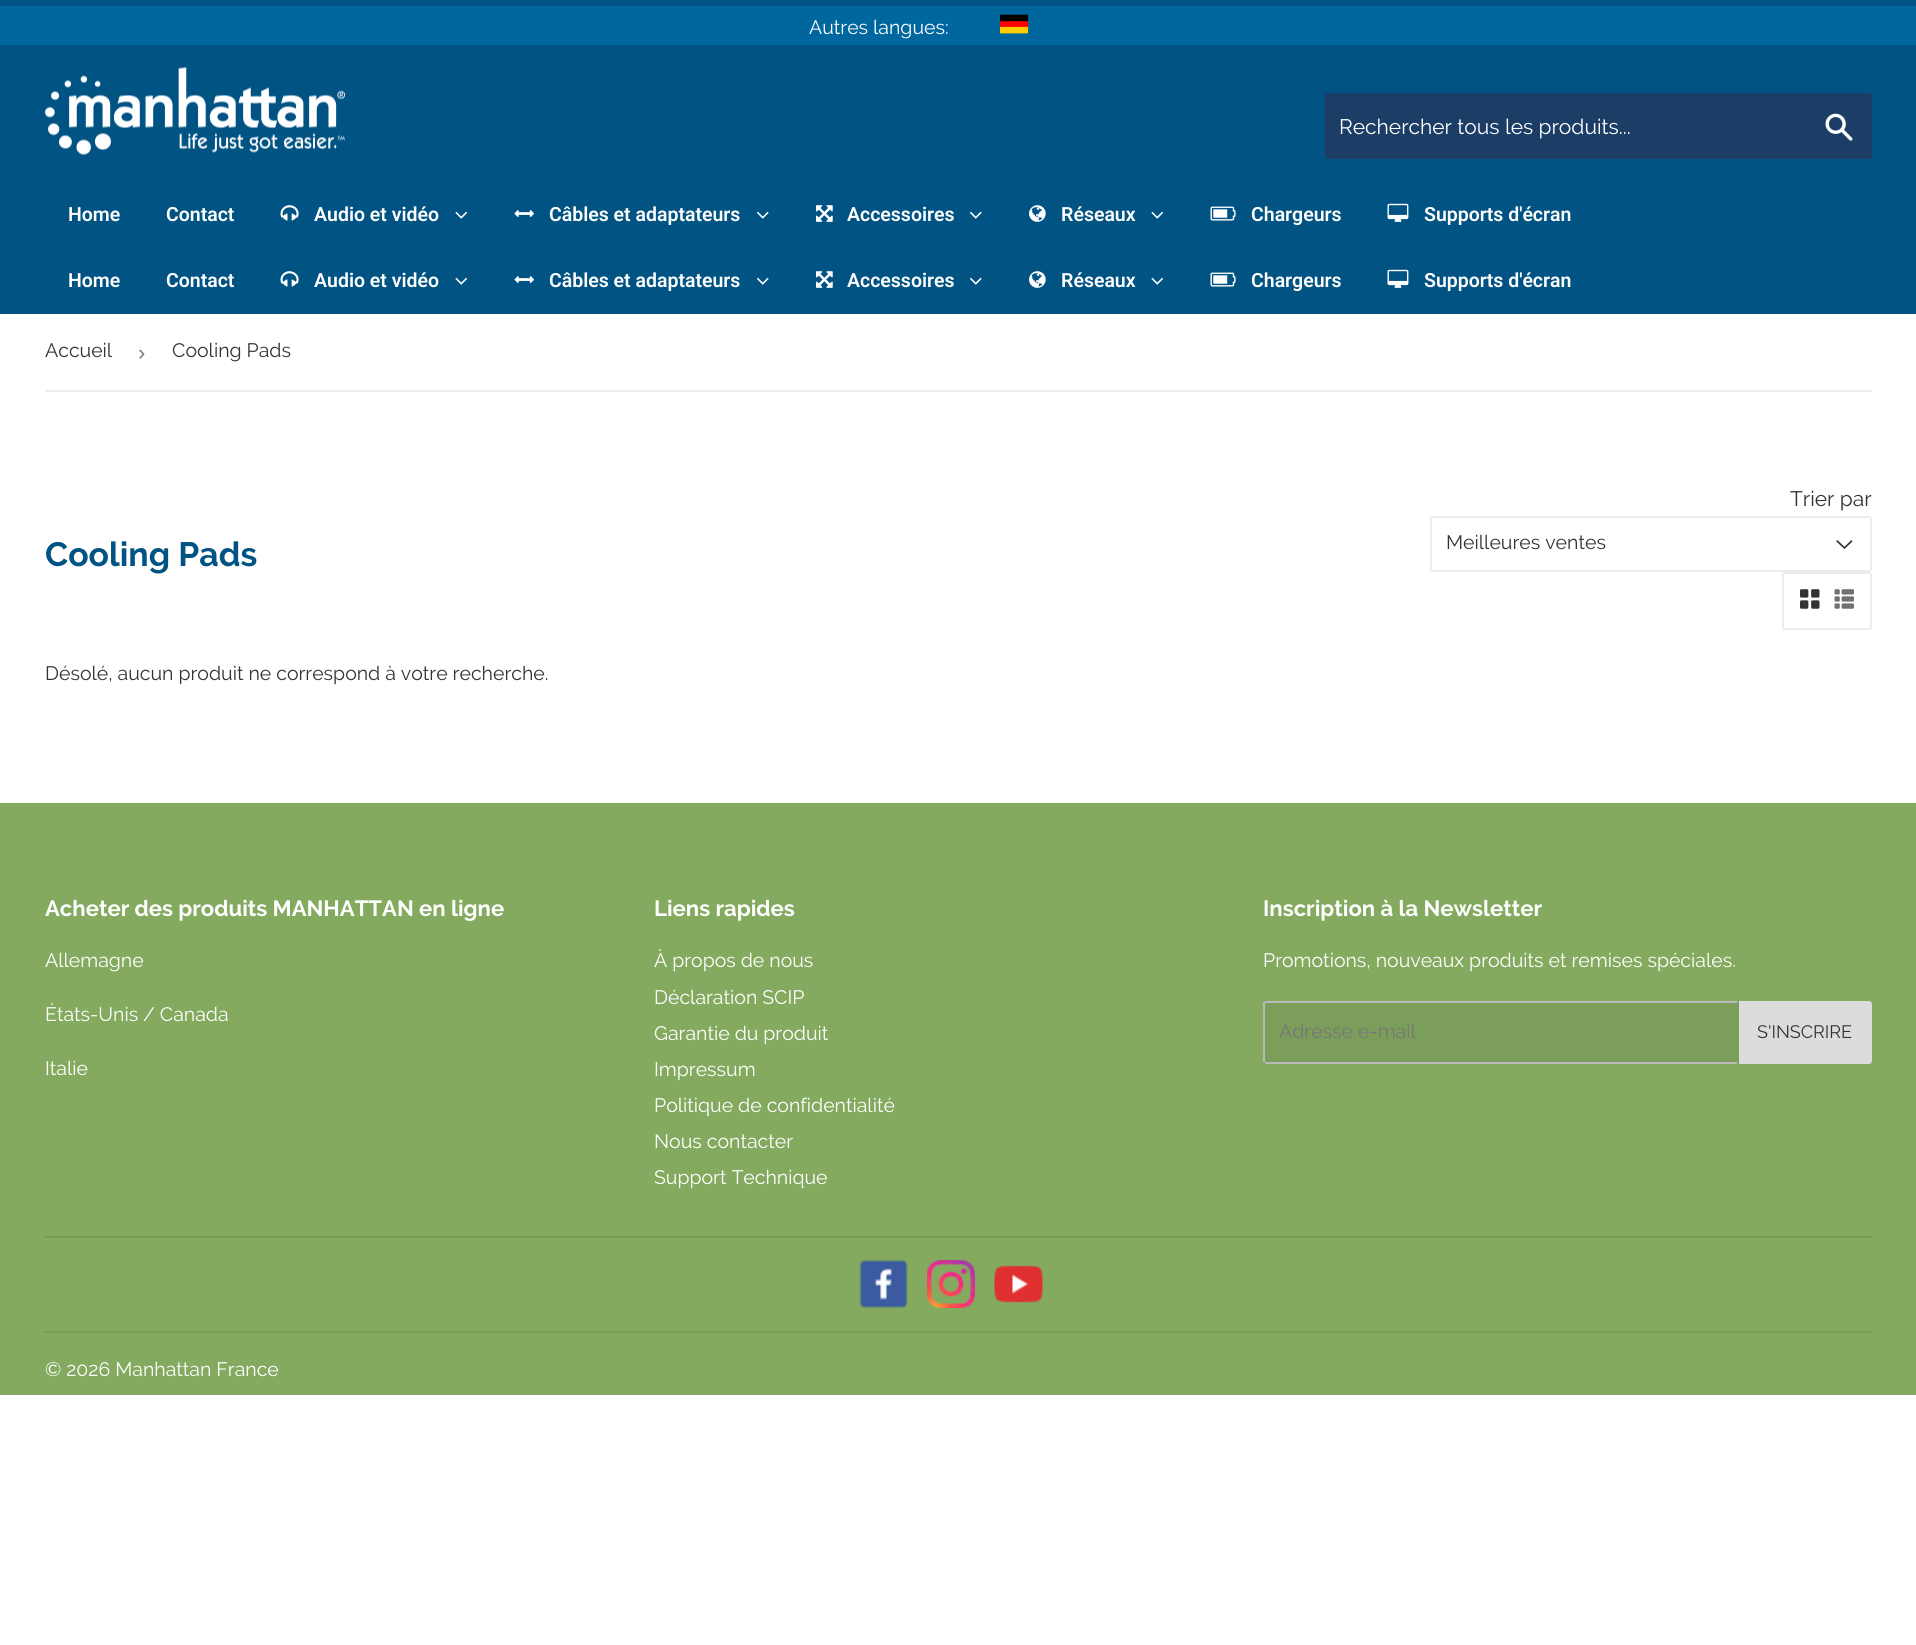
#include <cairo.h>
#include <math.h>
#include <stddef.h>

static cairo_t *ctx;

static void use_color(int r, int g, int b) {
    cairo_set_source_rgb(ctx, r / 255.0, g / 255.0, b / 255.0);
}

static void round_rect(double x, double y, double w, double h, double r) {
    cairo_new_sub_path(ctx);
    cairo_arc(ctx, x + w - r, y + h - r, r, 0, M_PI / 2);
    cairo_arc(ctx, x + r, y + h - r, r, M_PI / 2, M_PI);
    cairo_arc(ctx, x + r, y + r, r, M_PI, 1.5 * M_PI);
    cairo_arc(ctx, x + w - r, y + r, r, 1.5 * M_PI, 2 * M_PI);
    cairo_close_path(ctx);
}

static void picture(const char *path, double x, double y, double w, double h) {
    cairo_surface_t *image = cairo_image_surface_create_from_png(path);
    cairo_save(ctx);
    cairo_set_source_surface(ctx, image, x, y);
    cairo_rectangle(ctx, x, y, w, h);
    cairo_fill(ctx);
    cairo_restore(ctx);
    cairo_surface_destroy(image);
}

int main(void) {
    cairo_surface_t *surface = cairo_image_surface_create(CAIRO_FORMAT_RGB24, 1916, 1645);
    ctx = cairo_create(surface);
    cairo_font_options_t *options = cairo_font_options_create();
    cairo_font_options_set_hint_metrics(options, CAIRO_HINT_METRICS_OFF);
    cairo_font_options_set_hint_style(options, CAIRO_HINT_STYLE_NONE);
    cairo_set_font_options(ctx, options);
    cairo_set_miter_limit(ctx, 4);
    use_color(255, 255, 255);
    cairo_paint(ctx);
    use_color(0, 83, 131);
    cairo_rectangle(ctx, 0, 0, 1916, 314);
    cairo_fill(ctx);
    use_color(0, 102, 158);
    cairo_rectangle(ctx, 0, 6, 1916, 39);
    cairo_fill(ctx);
    cairo_select_font_face(ctx, "Raleway", CAIRO_FONT_SLANT_NORMAL, CAIRO_FONT_WEIGHT_NORMAL);
    cairo_set_font_size(ctx, 19.5);
    use_color(255, 255, 255);
    cairo_move_to(ctx, 809, 34);
    cairo_show_text(ctx, "Autres langues:");
    picture("img1.png", 1000, 14, 29, 20);
    picture("img2.png", 45, 67, 300, 88);
    use_color(28, 61, 102);
    round_rect(1325, 93, 547, 66, 3);
    cairo_fill(ctx);
    cairo_set_font_size(ctx, 21);
    use_color(255, 255, 255);
    cairo_move_to(ctx, 1339, 134);
    cairo_show_text(ctx, "Rechercher tous les produits...");
    picture("img3.png", 1825, 113, 28, 28);
    cairo_select_font_face(ctx, "Roboto SemiBold", CAIRO_FONT_SLANT_NORMAL, CAIRO_FONT_WEIGHT_NORMAL);
    cairo_set_font_size(ctx, 19.5);
    cairo_move_to(ctx, 68, 221);
    cairo_show_text(ctx, "Home");
    cairo_move_to(ctx, 166, 221);
    cairo_show_text(ctx, "Contact");
    picture("img4.png", 280, 205, 19, 16);
    cairo_move_to(ctx, 314, 221);
    cairo_show_text(ctx, "Audio et vidéo");
    picture("img5.png", 455, 211, 12, 8);
    picture("img6.png", 514, 210, 20, 7);
    cairo_move_to(ctx, 549, 221);
    cairo_show_text(ctx, "Câbles et adaptateurs");
    picture("img7.png", 757, 211, 12, 8);
    picture("img8.png", 816, 205, 17, 17);
    cairo_move_to(ctx, 847, 221);
    cairo_show_text(ctx, "Accessoires");
    picture("img7.png", 970, 211, 12, 8);
    picture("img9.png", 1029, 205, 17, 17);
    cairo_move_to(ctx, 1061, 221);
    cairo_show_text(ctx, "Réseaux");
    picture("img5.png", 1151, 211, 12, 8);
    picture("img10.png", 1210, 206, 26, 15);
    cairo_move_to(ctx, 1251, 221);
    cairo_show_text(ctx, "Chargeurs");
    picture("img11.png", 1387, 203, 22, 19);
    cairo_move_to(ctx, 1424, 221);
    cairo_show_text(ctx, "Supports d'écran");
    cairo_move_to(ctx, 68, 287);
    cairo_show_text(ctx, "Home");
    cairo_move_to(ctx, 166, 287);
    cairo_show_text(ctx, "Contact");
    picture("img4.png", 280, 271, 19, 16);
    cairo_move_to(ctx, 314, 287);
    cairo_show_text(ctx, "Audio et vidéo");
    picture("img5.png", 455, 277, 12, 8);
    picture("img6.png", 514, 276, 20, 7);
    cairo_move_to(ctx, 549, 287);
    cairo_show_text(ctx, "Câbles et adaptateurs");
    picture("img7.png", 757, 277, 12, 8);
    picture("img8.png", 816, 271, 17, 17);
    cairo_move_to(ctx, 847, 287);
    cairo_show_text(ctx, "Accessoires");
    picture("img7.png", 970, 277, 12, 8);
    picture("img9.png", 1029, 271, 17, 17);
    cairo_move_to(ctx, 1061, 287);
    cairo_show_text(ctx, "Réseaux");
    picture("img5.png", 1151, 277, 12, 8);
    picture("img10.png", 1210, 272, 26, 15);
    cairo_move_to(ctx, 1251, 287);
    cairo_show_text(ctx, "Chargeurs");
    picture("img11.png", 1387, 269, 22, 19);
    cairo_move_to(ctx, 1424, 287);
    cairo_show_text(ctx, "Supports d'écran");
    use_color(236, 236, 236);
    cairo_rectangle(ctx, 45, 390, 1827, 2);
    cairo_fill(ctx);
    cairo_select_font_face(ctx, "Raleway", CAIRO_FONT_SLANT_NORMAL, CAIRO_FONT_WEIGHT_NORMAL);
    use_color(51, 51, 51);
    cairo_move_to(ctx, 45, 357);
    cairo_show_text(ctx, "Accueil");
    cairo_select_font_face(ctx, "Liberation Sans", CAIRO_FONT_SLANT_NORMAL, CAIRO_FONT_WEIGHT_NORMAL);
    cairo_set_font_size(ctx, 22);
    use_color(118, 118, 118);
    cairo_move_to(ctx, 138, 360);
    cairo_show_text(ctx, "›");
    cairo_select_font_face(ctx, "Raleway", CAIRO_FONT_SLANT_NORMAL, CAIRO_FONT_WEIGHT_NORMAL);
    cairo_set_font_size(ctx, 19.5);
    use_color(51, 51, 51);
    cairo_move_to(ctx, 172, 357);
    cairo_show_text(ctx, "Cooling Pads");
    cairo_set_font_size(ctx, 21);
    cairo_move_to(ctx, 1790, 506);
    cairo_show_text(ctx, "Trier par");
    picture("img12.png", 1836, 540, 17, 9);
    round_rect(1431, 517, 440, 54, 2);
    use_color(236, 236, 236);
    cairo_stroke(ctx);
    cairo_set_font_size(ctx, 19.5);
    use_color(51, 51, 51);
    cairo_move_to(ctx, 1446, 549);
    cairo_show_text(ctx, "Meilleures ventes");
    round_rect(1783, 573, 88, 56, 2);
    use_color(236, 236, 236);
    cairo_stroke(ctx);
    picture("img13.png", 1800, 589, 20, 20);
    picture("img14.png", 1834, 589, 20, 20);
    cairo_select_font_face(ctx, "Raleway", CAIRO_FONT_SLANT_NORMAL, CAIRO_FONT_WEIGHT_BOLD);
    cairo_set_font_size(ctx, 33.75);
    use_color(0, 83, 131);
    cairo_move_to(ctx, 45, 566);
    cairo_show_text(ctx, "Cooling Pads");
    cairo_select_font_face(ctx, "Raleway", CAIRO_FONT_SLANT_NORMAL, CAIRO_FONT_WEIGHT_NORMAL);
    cairo_set_font_size(ctx, 19.5);
    use_color(51, 51, 51);
    cairo_move_to(ctx, 45, 680);
    cairo_show_text(ctx, "Désolé, aucun produit ne correspond à votre recherche.");
    use_color(132, 170, 96);
    cairo_rectangle(ctx, 0, 803, 1916, 592);
    cairo_fill(ctx);
    cairo_select_font_face(ctx, "Raleway", CAIRO_FONT_SLANT_NORMAL, CAIRO_FONT_WEIGHT_BOLD);
    cairo_set_font_size(ctx, 22.1);
    use_color(255, 255, 255);
    cairo_move_to(ctx, 45, 916);
    cairo_show_text(ctx, "Acheter des produits MANHATTAN en ligne");
    cairo_select_font_face(ctx, "Raleway", CAIRO_FONT_SLANT_NORMAL, CAIRO_FONT_WEIGHT_NORMAL);
    cairo_set_font_size(ctx, 19.5);
    cairo_move_to(ctx, 45, 967);
    cairo_show_text(ctx, "Allemagne");
    cairo_move_to(ctx, 45, 1021);
    cairo_show_text(ctx, "États-Unis / Canada");
    cairo_move_to(ctx, 45, 1075);
    cairo_show_text(ctx, "Italie");
    cairo_select_font_face(ctx, "Raleway", CAIRO_FONT_SLANT_NORMAL, CAIRO_FONT_WEIGHT_BOLD);
    cairo_set_font_size(ctx, 22.1);
    cairo_move_to(ctx, 654, 916);
    cairo_show_text(ctx, "Liens rapides");
    cairo_select_font_face(ctx, "Raleway", CAIRO_FONT_SLANT_NORMAL, CAIRO_FONT_WEIGHT_NORMAL);
    cairo_set_font_size(ctx, 19.5);
    cairo_move_to(ctx, 654, 967);
    cairo_show_text(ctx, "À propos de nous");
    cairo_move_to(ctx, 654, 1004);
    cairo_show_text(ctx, "Déclaration SCIP");
    cairo_move_to(ctx, 654, 1040);
    cairo_show_text(ctx, "Garantie du produit");
    cairo_move_to(ctx, 654, 1076);
    cairo_show_text(ctx, "Impressum");
    cairo_move_to(ctx, 654, 1112);
    cairo_show_text(ctx, "Politique de confidentialité");
    cairo_move_to(ctx, 654, 1148);
    cairo_show_text(ctx, "Nous contacter");
    cairo_move_to(ctx, 654, 1184);
    cairo_show_text(ctx, "Support Technique");
    cairo_select_font_face(ctx, "Raleway", CAIRO_FONT_SLANT_NORMAL, CAIRO_FONT_WEIGHT_BOLD);
    cairo_set_font_size(ctx, 22.1);
    cairo_move_to(ctx, 1263, 916);
    cairo_show_text(ctx, "Inscription à la Newsletter");
    cairo_select_font_face(ctx, "Raleway", CAIRO_FONT_SLANT_NORMAL, CAIRO_FONT_WEIGHT_NORMAL);
    cairo_set_font_size(ctx, 19.5);
    cairo_move_to(ctx, 1263, 967);
    cairo_show_text(ctx, "Promotions, nouveaux produits et remises spéciales.");
    use_color(124, 158, 91);
    round_rect(1263, 1001, 476, 63, 3);
    cairo_fill(ctx);
    use_color(185, 185, 185);
    cairo_rectangle(ctx, 1265, 1001, 472, 2);
    cairo_fill(ctx);
    cairo_rectangle(ctx, 1265, 1062, 472, 2);
    cairo_fill(ctx);
    cairo_rectangle(ctx, 1263, 1002, 2, 60);
    cairo_fill(ctx);
    use_color(118, 118, 118);
    cairo_move_to(ctx, 1279, 1038);
    cairo_show_text(ctx, "Adresse e-mail");
    use_color(220, 220, 220);
    cairo_new_path(ctx);
    cairo_move_to(ctx, 1739, 1001);
    cairo_line_to(ctx, 1869, 1001);
    cairo_curve_to(ctx, 1870.5, 1001, 1872, 1002.5, 1872, 1004);
    cairo_line_to(ctx, 1872, 1061);
    cairo_curve_to(ctx, 1872, 1062.5, 1870.5, 1064, 1869, 1064);
    cairo_line_to(ctx, 1739, 1064);
    cairo_close_path(ctx);
    cairo_fill(ctx);
    cairo_set_font_size(ctx, 18);
    use_color(51, 51, 51);
    cairo_move_to(ctx, 1757, 1038);
    cairo_show_text(ctx, "S'INSCRIRE");
    use_color(119, 157, 84);
    cairo_rectangle(ctx, 45, 1236, 1827, 2);
    cairo_fill(ctx);
    picture("img15.png", 859, 1260, 49, 48);
    picture("img16.png", 927, 1260, 48, 48);
    picture("img17.png", 994, 1265, 49, 38);
    cairo_rectangle(ctx, 45, 1331, 1827, 2);
    cairo_fill(ctx);
    cairo_set_font_size(ctx, 19.5);
    use_color(255, 255, 255);
    cairo_move_to(ctx, 45, 1376);
    cairo_show_text(ctx, "© 2026 Manhattan France");
    cairo_surface_write_to_png(surface, "result.png");
    cairo_font_options_destroy(options);
    cairo_destroy(ctx);
    cairo_surface_destroy(surface);
    return 0;
}
